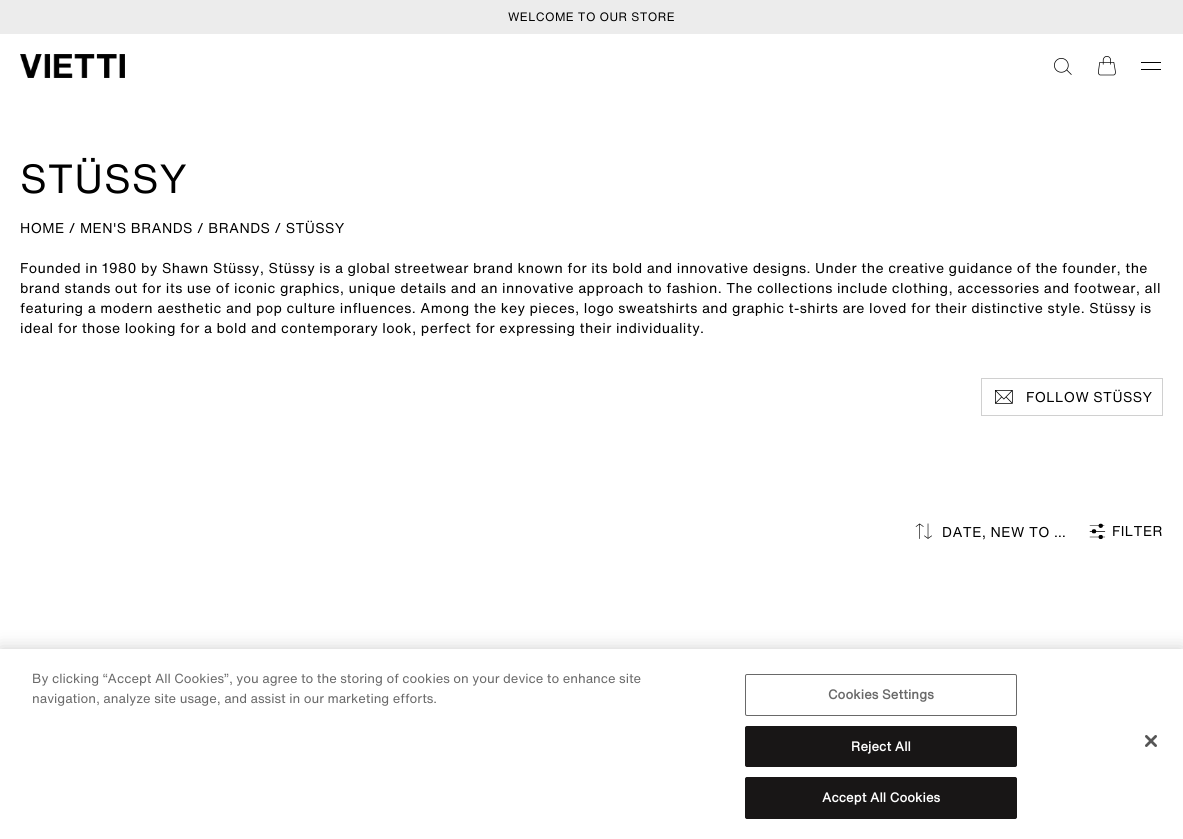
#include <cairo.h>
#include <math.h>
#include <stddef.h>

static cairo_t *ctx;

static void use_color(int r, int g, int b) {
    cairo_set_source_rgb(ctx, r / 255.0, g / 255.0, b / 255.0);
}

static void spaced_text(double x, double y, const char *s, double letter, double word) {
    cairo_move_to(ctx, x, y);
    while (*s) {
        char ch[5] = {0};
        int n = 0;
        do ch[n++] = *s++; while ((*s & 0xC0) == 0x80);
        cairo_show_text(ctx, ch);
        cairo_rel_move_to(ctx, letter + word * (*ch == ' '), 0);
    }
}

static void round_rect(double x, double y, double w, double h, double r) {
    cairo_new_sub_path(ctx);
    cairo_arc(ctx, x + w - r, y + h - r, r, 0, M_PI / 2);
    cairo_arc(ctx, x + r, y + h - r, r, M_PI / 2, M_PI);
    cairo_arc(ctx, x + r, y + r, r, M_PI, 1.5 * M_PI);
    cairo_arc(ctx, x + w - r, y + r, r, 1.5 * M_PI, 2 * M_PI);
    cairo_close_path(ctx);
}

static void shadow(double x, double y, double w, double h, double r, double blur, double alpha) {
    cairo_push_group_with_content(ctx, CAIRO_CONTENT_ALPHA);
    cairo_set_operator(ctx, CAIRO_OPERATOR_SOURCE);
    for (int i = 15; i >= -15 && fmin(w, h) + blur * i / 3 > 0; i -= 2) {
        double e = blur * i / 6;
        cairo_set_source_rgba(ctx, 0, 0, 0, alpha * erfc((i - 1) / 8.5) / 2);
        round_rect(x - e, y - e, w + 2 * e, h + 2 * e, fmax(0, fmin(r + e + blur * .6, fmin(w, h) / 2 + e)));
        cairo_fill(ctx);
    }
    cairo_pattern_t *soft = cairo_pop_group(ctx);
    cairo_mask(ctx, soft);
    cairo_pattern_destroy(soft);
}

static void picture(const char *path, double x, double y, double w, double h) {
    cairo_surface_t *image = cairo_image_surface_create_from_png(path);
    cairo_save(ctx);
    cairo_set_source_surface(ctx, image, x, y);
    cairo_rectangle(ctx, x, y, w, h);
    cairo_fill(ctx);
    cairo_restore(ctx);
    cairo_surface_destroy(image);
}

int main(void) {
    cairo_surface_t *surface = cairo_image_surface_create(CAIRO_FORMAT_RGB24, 1183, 839);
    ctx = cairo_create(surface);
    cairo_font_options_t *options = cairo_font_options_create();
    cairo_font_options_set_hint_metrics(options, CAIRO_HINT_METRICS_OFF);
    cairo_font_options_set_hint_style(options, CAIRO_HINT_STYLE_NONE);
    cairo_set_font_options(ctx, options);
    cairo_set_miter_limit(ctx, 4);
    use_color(255, 255, 255);
    cairo_paint(ctx);
    use_color(236, 236, 236);
    cairo_rectangle(ctx, 0, 0, 1183, 34);
    cairo_fill(ctx);
    cairo_select_font_face(ctx, "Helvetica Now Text", CAIRO_FONT_SLANT_NORMAL, CAIRO_FONT_WEIGHT_NORMAL);
    cairo_set_font_size(ctx, 12);
    use_color(0, 0, 0);
    spaced_text(508, 21, "WELCOME TO OUR STORE", 0.4, 0);
    picture("img1.png", 20, 54, 105, 24);
    picture("img2.png", 1054, 58, 18, 17);
    picture("img3.png", 1098, 56, 18, 20);
    cairo_new_path(ctx);
    cairo_move_to(ctx, 1141.5, 62.5);
    cairo_line_to(ctx, 1160.5, 62.5);
    cairo_move_to(ctx, 1141.5, 69.5);
    cairo_line_to(ctx, 1160.5, 69.5);
    cairo_set_line_width(ctx, 1);
    cairo_set_line_cap(ctx, CAIRO_LINE_CAP_SQUARE);
    cairo_stroke(ctx);
    cairo_set_font_size(ctx, 40);
    spaced_text(20, 193, "STÜSSY", 1, 0);
    cairo_set_font_size(ctx, 14);
    spaced_text(20, 233, "HOME / MEN'S BRANDS / BRANDS / STÜSSY", 0.4, 0);
    spaced_text(20, 273, "Founded in 1980 by Shawn Stüssy, Stüssy is a global streetwear brand known for its bold and innovative designs. Under the creative guidance of the founder, the", 0.4, 0);
    spaced_text(20, 293, "brand stands out for its use of iconic graphics, unique details and an innovative approach to fashion. The collections include clothing, accessories and footwear, all", 0.4, 0);
    spaced_text(20, 313, "featuring a modern aesthetic and pop culture influences. Among the key pieces, logo sweatshirts and graphic t-shirts are loved for their distinctive style. Stüssy is", 0.4, 0);
    spaced_text(20, 333, "ideal for those looking for a bold and contemporary look, perfect for expressing their individuality.", 0.4, 0);
    cairo_rectangle(ctx, 981.5, 378.5, 181, 37);
    use_color(208, 208, 208);
    cairo_set_line_cap(ctx, CAIRO_LINE_CAP_BUTT);
    cairo_stroke(ctx);
    picture("img4.png", 995, 390, 18, 14);
    use_color(0, 0, 0);
    spaced_text(1026, 402, "FOLLOW STÜSSY", 0.4, 0);
    picture("img5.png", 915, 523, 17, 16);
    spaced_text(942, 537, "DATE, NEW TO …", 0.4, 0);
    picture("img6.png", 1089, 523, 17, 17);
    spaced_text(1112, 536, "FILTER", 0.4, 0);
    use_color(0, 0, 0);
    shadow(0, 649, 1183, 190, 0, 9, 0.2);
    use_color(255, 255, 255);
    cairo_rectangle(ctx, 0, 649, 1183, 190);
    cairo_fill(ctx);
    cairo_set_font_size(ctx, 13);
    use_color(105, 105, 105);
    cairo_move_to(ctx, 32, 683);
    cairo_show_text(ctx, "By clicking “Accept All Cookies”, you agree to the storing of cookies on your device to enhance site");
    cairo_move_to(ctx, 32, 703);
    cairo_show_text(ctx, "navigation, analyze site usage, and assist in our marketing efforts.");
    round_rect(745.5, 674.5, 271, 41, 1.5);
    cairo_stroke(ctx);
    cairo_select_font_face(ctx, "Helvetica Now Text", CAIRO_FONT_SLANT_NORMAL, CAIRO_FONT_WEIGHT_BOLD);
    spaced_text(828, 699, "Cookies Settings", 0.1, 0);
    use_color(24, 22, 22);
    round_rect(745.5, 726.5, 271, 40, 1.5);
    cairo_fill_preserve(ctx);
    cairo_stroke(ctx);
    use_color(255, 255, 255);
    spaced_text(851, 751, "Reject All", 0.1, 0);
    use_color(24, 22, 22);
    round_rect(745.5, 777.5, 271, 41, 1.5);
    cairo_fill_preserve(ctx);
    cairo_stroke(ctx);
    use_color(255, 255, 255);
    spaced_text(822, 802, "Accept All Cookies", 0.1, 0);
    picture("img7.png", 1145, 735, 12, 12);
    cairo_surface_write_to_png(surface, "result.png");
    cairo_font_options_destroy(options);
    cairo_destroy(ctx);
    cairo_surface_destroy(surface);
    return 0;
}
